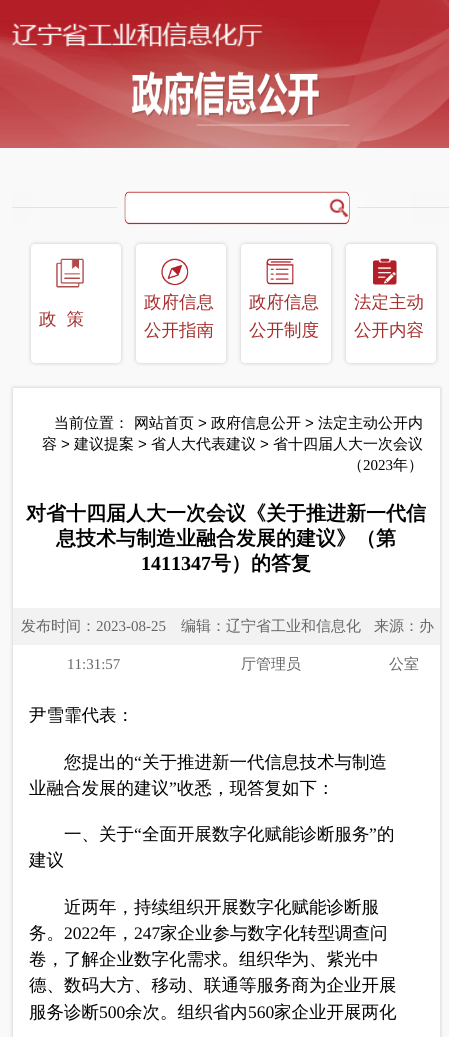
#include <cairo.h>
#include <math.h>
#include <stddef.h>

static cairo_t *ctx;

static void use_color(int r, int g, int b) {
    cairo_set_source_rgb(ctx, r / 255.0, g / 255.0, b / 255.0);
}

static void spaced_text(double x, double y, const char *s, double letter, double word) {
    cairo_move_to(ctx, x, y);
    while (*s) {
        char ch[5] = {0};
        int n = 0;
        do ch[n++] = *s++; while ((*s & 0xC0) == 0x80);
        cairo_show_text(ctx, ch);
        cairo_rel_move_to(ctx, letter + word * (*ch == ' '), 0);
    }
}

static void round_rect(double x, double y, double w, double h, double r) {
    cairo_new_sub_path(ctx);
    cairo_arc(ctx, x + w - r, y + h - r, r, 0, M_PI / 2);
    cairo_arc(ctx, x + r, y + h - r, r, M_PI / 2, M_PI);
    cairo_arc(ctx, x + r, y + r, r, M_PI, 1.5 * M_PI);
    cairo_arc(ctx, x + w - r, y + r, r, 1.5 * M_PI, 2 * M_PI);
    cairo_close_path(ctx);
}

static void shadow(double x, double y, double w, double h, double r, double blur, double alpha) {
    cairo_push_group_with_content(ctx, CAIRO_CONTENT_ALPHA);
    cairo_set_operator(ctx, CAIRO_OPERATOR_SOURCE);
    for (int i = 15; i >= -15 && fmin(w, h) + blur * i / 3 > 0; i -= 2) {
        double e = blur * i / 6;
        cairo_set_source_rgba(ctx, 0, 0, 0, alpha * erfc((i - 1) / 8.5) / 2);
        round_rect(x - e, y - e, w + 2 * e, h + 2 * e, fmax(0, fmin(r + e + blur * .6, fmin(w, h) / 2 + e)));
        cairo_fill(ctx);
    }
    cairo_pattern_t *soft = cairo_pop_group(ctx);
    cairo_mask(ctx, soft);
    cairo_pattern_destroy(soft);
}

static void picture(const char *path, double x, double y, double w, double h) {
    cairo_surface_t *image = cairo_image_surface_create_from_png(path);
    cairo_save(ctx);
    cairo_set_source_surface(ctx, image, x, y);
    cairo_rectangle(ctx, x, y, w, h);
    cairo_fill(ctx);
    cairo_restore(ctx);
    cairo_surface_destroy(image);
}

int main(void) {
    cairo_surface_t *surface = cairo_image_surface_create(CAIRO_FORMAT_RGB24, 449, 1037);
    ctx = cairo_create(surface);
    cairo_font_options_t *options = cairo_font_options_create();
    cairo_font_options_set_hint_metrics(options, CAIRO_HINT_METRICS_OFF);
    cairo_font_options_set_hint_style(options, CAIRO_HINT_STYLE_NONE);
    cairo_set_font_options(ctx, options);
    cairo_set_miter_limit(ctx, 4);
    use_color(255, 255, 255);
    cairo_paint(ctx);
    picture("img1.png", 0, 0, 449, 148);
    picture("img2.png", 12, 22, 251, 25);
    use_color(249, 249, 249);
    cairo_rectangle(ctx, 0, 148, 449, 889);
    cairo_fill(ctx);
    picture("img3.png", 12, 191, 437, 35);
    picture("img4.png", 329, 198, 20, 20);
    use_color(0, 0, 0);
    shadow(31, 244, 90, 119, 4, 2, 0.2);
    use_color(255, 255, 255);
    round_rect(31, 244, 90, 119, 4);
    cairo_fill(ctx);
    picture("img5.png", 56, 258, 28, 30);
    cairo_select_font_face(ctx, "WenQuanYi Zen Hei Medium", CAIRO_FONT_SLANT_NORMAL, CAIRO_FONT_WEIGHT_NORMAL);
    cairo_set_font_size(ctx, 17.5);
    use_color(165, 46, 45);
    spaced_text(39, 325, "政策", 10, 0);
    use_color(0, 0, 0);
    shadow(136, 244, 90, 119, 4, 2, 0.2);
    use_color(255, 255, 255);
    round_rect(136, 244, 90, 119, 4);
    cairo_fill(ctx);
    picture("img6.png", 161, 258, 28, 27);
    use_color(165, 46, 45);
    cairo_move_to(ctx, 144, 308);
    cairo_show_text(ctx, "政府信息");
    cairo_move_to(ctx, 144, 336);
    cairo_show_text(ctx, "公开指南");
    use_color(0, 0, 0);
    shadow(241, 244, 90, 119, 4, 2, 0.2);
    use_color(255, 255, 255);
    round_rect(241, 244, 90, 119, 4);
    cairo_fill(ctx);
    picture("img7.png", 266, 258, 28, 27);
    use_color(165, 46, 45);
    cairo_move_to(ctx, 249, 308);
    cairo_show_text(ctx, "政府信息");
    cairo_move_to(ctx, 249, 336);
    cairo_show_text(ctx, "公开制度");
    use_color(0, 0, 0);
    shadow(346, 244, 90, 119, 4, 2, 0.2);
    use_color(255, 255, 255);
    round_rect(346, 244, 90, 119, 4);
    cairo_fill(ctx);
    picture("img8.png", 373, 258, 24, 27);
    use_color(165, 46, 45);
    cairo_move_to(ctx, 354, 308);
    cairo_show_text(ctx, "法定主动");
    cairo_move_to(ctx, 354, 336);
    cairo_show_text(ctx, "公开内容");
    use_color(0, 0, 0);
    shadow(13, 388, 427, 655, 0, 2, 0.2);
    use_color(255, 255, 255);
    cairo_rectangle(ctx, 13, 388, 427, 649);
    cairo_fill(ctx);
    cairo_set_font_size(ctx, 15);
    use_color(0, 0, 0);
    cairo_move_to(ctx, 54, 428);
    cairo_show_text(ctx, "当前位置：");
    cairo_move_to(ctx, 134, 428);
    cairo_show_text(ctx, "网站首页");
    cairo_select_font_face(ctx, "Liberation Sans", CAIRO_FONT_SLANT_NORMAL, CAIRO_FONT_WEIGHT_NORMAL);
    cairo_move_to(ctx, 198, 428);
    cairo_show_text(ctx, ">");
    cairo_select_font_face(ctx, "WenQuanYi Zen Hei Medium", CAIRO_FONT_SLANT_NORMAL, CAIRO_FONT_WEIGHT_NORMAL);
    cairo_move_to(ctx, 211, 428);
    cairo_show_text(ctx, "政府信息公开");
    cairo_select_font_face(ctx, "Liberation Sans", CAIRO_FONT_SLANT_NORMAL, CAIRO_FONT_WEIGHT_NORMAL);
    cairo_move_to(ctx, 305, 428);
    cairo_show_text(ctx, ">");
    cairo_select_font_face(ctx, "WenQuanYi Zen Hei Medium", CAIRO_FONT_SLANT_NORMAL, CAIRO_FONT_WEIGHT_NORMAL);
    cairo_move_to(ctx, 318, 428);
    cairo_show_text(ctx, "法定主动公开内");
    cairo_move_to(ctx, 42, 449);
    cairo_show_text(ctx, "容");
    cairo_select_font_face(ctx, "Liberation Sans", CAIRO_FONT_SLANT_NORMAL, CAIRO_FONT_WEIGHT_NORMAL);
    cairo_move_to(ctx, 61, 449);
    cairo_show_text(ctx, ">");
    cairo_select_font_face(ctx, "WenQuanYi Zen Hei Medium", CAIRO_FONT_SLANT_NORMAL, CAIRO_FONT_WEIGHT_NORMAL);
    cairo_move_to(ctx, 74, 449);
    cairo_show_text(ctx, "建议提案");
    cairo_select_font_face(ctx, "Liberation Sans", CAIRO_FONT_SLANT_NORMAL, CAIRO_FONT_WEIGHT_NORMAL);
    cairo_move_to(ctx, 138, 449);
    cairo_show_text(ctx, ">");
    cairo_select_font_face(ctx, "WenQuanYi Zen Hei Medium", CAIRO_FONT_SLANT_NORMAL, CAIRO_FONT_WEIGHT_NORMAL);
    cairo_move_to(ctx, 151, 449);
    cairo_show_text(ctx, "省人大代表建议");
    cairo_select_font_face(ctx, "Liberation Sans", CAIRO_FONT_SLANT_NORMAL, CAIRO_FONT_WEIGHT_NORMAL);
    cairo_move_to(ctx, 260, 449);
    cairo_show_text(ctx, ">");
    cairo_select_font_face(ctx, "WenQuanYi Zen Hei Medium", CAIRO_FONT_SLANT_NORMAL, CAIRO_FONT_WEIGHT_NORMAL);
    cairo_move_to(ctx, 273, 449);
    cairo_show_text(ctx, "省十四届人大一次会议");
    cairo_move_to(ctx, 348, 470);
    cairo_show_text(ctx, "（");
    cairo_select_font_face(ctx, "Liberation Serif", CAIRO_FONT_SLANT_NORMAL, CAIRO_FONT_WEIGHT_NORMAL);
    cairo_move_to(ctx, 363, 470);
    cairo_show_text(ctx, "2023");
    cairo_select_font_face(ctx, "WenQuanYi Zen Hei Medium", CAIRO_FONT_SLANT_NORMAL, CAIRO_FONT_WEIGHT_NORMAL);
    cairo_move_to(ctx, 393, 470);
    cairo_show_text(ctx, "年）");
    cairo_select_font_face(ctx, "WenQuanYi Zen Hei", CAIRO_FONT_SLANT_NORMAL, CAIRO_FONT_WEIGHT_BOLD);
    cairo_set_font_size(ctx, 20);
    cairo_move_to(ctx, 26, 520);
    cairo_show_text(ctx, "对省十四届人大一次会议《关于推进新一代信");
    cairo_move_to(ctx, 56, 545);
    cairo_show_text(ctx, "息技术与制造业融合发展的建议》（第");
    cairo_select_font_face(ctx, "Liberation Serif", CAIRO_FONT_SLANT_NORMAL, CAIRO_FONT_WEIGHT_BOLD);
    cairo_move_to(ctx, 141, 570);
    cairo_show_text(ctx, "1411347");
    cairo_select_font_face(ctx, "WenQuanYi Zen Hei", CAIRO_FONT_SLANT_NORMAL, CAIRO_FONT_WEIGHT_BOLD);
    cairo_move_to(ctx, 211, 570);
    cairo_show_text(ctx, "号）的答复");
    use_color(242, 242, 242);
    cairo_rectangle(ctx, 13, 608, 427, 37);
    cairo_fill(ctx);
    cairo_select_font_face(ctx, "WenQuanYi Zen Hei Medium", CAIRO_FONT_SLANT_NORMAL, CAIRO_FONT_WEIGHT_NORMAL);
    cairo_set_font_size(ctx, 15);
    use_color(102, 102, 102);
    cairo_move_to(ctx, 21, 631);
    cairo_show_text(ctx, "发布时间：");
    cairo_select_font_face(ctx, "Liberation Serif", CAIRO_FONT_SLANT_NORMAL, CAIRO_FONT_WEIGHT_NORMAL);
    cairo_move_to(ctx, 96, 631);
    cairo_show_text(ctx, "2023-08-25");
    cairo_move_to(ctx, 67, 669);
    cairo_show_text(ctx, "11:31:57");
    cairo_select_font_face(ctx, "WenQuanYi Zen Hei Medium", CAIRO_FONT_SLANT_NORMAL, CAIRO_FONT_WEIGHT_NORMAL);
    cairo_move_to(ctx, 181, 631);
    cairo_show_text(ctx, "编辑：辽宁省工业和信息化");
    cairo_move_to(ctx, 241, 669);
    cairo_show_text(ctx, "厅管理员");
    cairo_move_to(ctx, 374, 631);
    cairo_show_text(ctx, "来源：办");
    cairo_move_to(ctx, 389, 669);
    cairo_show_text(ctx, "公室");
    cairo_set_font_size(ctx, 17.5);
    use_color(0, 0, 0);
    cairo_move_to(ctx, 29, 721);
    cairo_show_text(ctx, "尹雪霏代表：");
    cairo_move_to(ctx, 64, 768);
    cairo_show_text(ctx, "您提出的");
    cairo_select_font_face(ctx, "Liberation Serif", CAIRO_FONT_SLANT_NORMAL, CAIRO_FONT_WEIGHT_NORMAL);
    cairo_move_to(ctx, 134, 768);
    cairo_show_text(ctx, "“");
    cairo_select_font_face(ctx, "WenQuanYi Zen Hei Medium", CAIRO_FONT_SLANT_NORMAL, CAIRO_FONT_WEIGHT_NORMAL);
    cairo_move_to(ctx, 142, 768);
    cairo_show_text(ctx, "关于推进新一代信息技术与制造");
    cairo_move_to(ctx, 29, 794);
    cairo_show_text(ctx, "业融合发展的建议");
    cairo_select_font_face(ctx, "Liberation Serif", CAIRO_FONT_SLANT_NORMAL, CAIRO_FONT_WEIGHT_NORMAL);
    cairo_move_to(ctx, 169, 794);
    cairo_show_text(ctx, "”");
    cairo_select_font_face(ctx, "WenQuanYi Zen Hei Medium", CAIRO_FONT_SLANT_NORMAL, CAIRO_FONT_WEIGHT_NORMAL);
    cairo_move_to(ctx, 177, 794);
    cairo_show_text(ctx, "收悉，现答复如下：");
    cairo_move_to(ctx, 64, 840);
    cairo_show_text(ctx, "一、关于");
    cairo_select_font_face(ctx, "Liberation Serif", CAIRO_FONT_SLANT_NORMAL, CAIRO_FONT_WEIGHT_NORMAL);
    cairo_move_to(ctx, 134, 840);
    cairo_show_text(ctx, "“");
    cairo_select_font_face(ctx, "WenQuanYi Zen Hei Medium", CAIRO_FONT_SLANT_NORMAL, CAIRO_FONT_WEIGHT_NORMAL);
    cairo_move_to(ctx, 142, 840);
    cairo_show_text(ctx, "全面开展数字化赋能诊断服务");
    cairo_select_font_face(ctx, "Liberation Serif", CAIRO_FONT_SLANT_NORMAL, CAIRO_FONT_WEIGHT_NORMAL);
    cairo_move_to(ctx, 369, 840);
    cairo_show_text(ctx, "”");
    cairo_select_font_face(ctx, "WenQuanYi Zen Hei Medium", CAIRO_FONT_SLANT_NORMAL, CAIRO_FONT_WEIGHT_NORMAL);
    cairo_move_to(ctx, 377, 840);
    cairo_show_text(ctx, "的");
    cairo_move_to(ctx, 29, 866);
    cairo_show_text(ctx, "建议");
    cairo_move_to(ctx, 64, 913);
    cairo_show_text(ctx, "近两年，持续组织开展数字化赋能诊断服");
    cairo_move_to(ctx, 29, 939);
    cairo_show_text(ctx, "务。");
    cairo_select_font_face(ctx, "Liberation Serif", CAIRO_FONT_SLANT_NORMAL, CAIRO_FONT_WEIGHT_NORMAL);
    cairo_move_to(ctx, 64, 939);
    cairo_show_text(ctx, "2022");
    cairo_select_font_face(ctx, "WenQuanYi Zen Hei Medium", CAIRO_FONT_SLANT_NORMAL, CAIRO_FONT_WEIGHT_NORMAL);
    cairo_move_to(ctx, 99, 939);
    cairo_show_text(ctx, "年，");
    cairo_select_font_face(ctx, "Liberation Serif", CAIRO_FONT_SLANT_NORMAL, CAIRO_FONT_WEIGHT_NORMAL);
    cairo_move_to(ctx, 134, 939);
    cairo_show_text(ctx, "247");
    cairo_select_font_face(ctx, "WenQuanYi Zen Hei Medium", CAIRO_FONT_SLANT_NORMAL, CAIRO_FONT_WEIGHT_NORMAL);
    cairo_move_to(ctx, 160, 939);
    cairo_show_text(ctx, "家企业参与数字化转型调查问");
    cairo_move_to(ctx, 29, 965);
    cairo_show_text(ctx, "卷，了解企业数字化需求。组织华为、紫光中");
    cairo_move_to(ctx, 29, 991);
    cairo_show_text(ctx, "德、数码大方、移动、联通等服务商为企业开展");
    cairo_move_to(ctx, 29, 1018);
    cairo_show_text(ctx, "服务诊断");
    cairo_select_font_face(ctx, "Liberation Serif", CAIRO_FONT_SLANT_NORMAL, CAIRO_FONT_WEIGHT_NORMAL);
    cairo_move_to(ctx, 99, 1018);
    cairo_show_text(ctx, "500");
    cairo_select_font_face(ctx, "WenQuanYi Zen Hei Medium", CAIRO_FONT_SLANT_NORMAL, CAIRO_FONT_WEIGHT_NORMAL);
    cairo_move_to(ctx, 125, 1018);
    cairo_show_text(ctx, "余次。组织省内");
    cairo_select_font_face(ctx, "Liberation Serif", CAIRO_FONT_SLANT_NORMAL, CAIRO_FONT_WEIGHT_NORMAL);
    cairo_move_to(ctx, 248, 1018);
    cairo_show_text(ctx, "560");
    cairo_select_font_face(ctx, "WenQuanYi Zen Hei Medium", CAIRO_FONT_SLANT_NORMAL, CAIRO_FONT_WEIGHT_NORMAL);
    cairo_move_to(ctx, 274, 1018);
    cairo_show_text(ctx, "家企业开展两化");
    cairo_surface_write_to_png(surface, "result.png");
    cairo_font_options_destroy(options);
    cairo_destroy(ctx);
    cairo_surface_destroy(surface);
    return 0;
}
